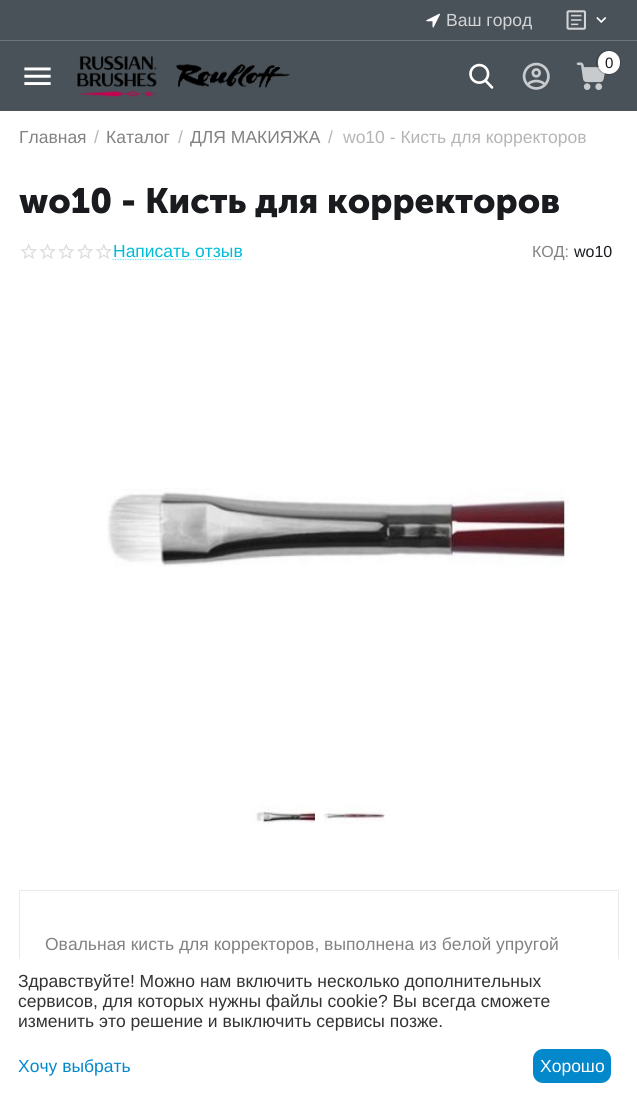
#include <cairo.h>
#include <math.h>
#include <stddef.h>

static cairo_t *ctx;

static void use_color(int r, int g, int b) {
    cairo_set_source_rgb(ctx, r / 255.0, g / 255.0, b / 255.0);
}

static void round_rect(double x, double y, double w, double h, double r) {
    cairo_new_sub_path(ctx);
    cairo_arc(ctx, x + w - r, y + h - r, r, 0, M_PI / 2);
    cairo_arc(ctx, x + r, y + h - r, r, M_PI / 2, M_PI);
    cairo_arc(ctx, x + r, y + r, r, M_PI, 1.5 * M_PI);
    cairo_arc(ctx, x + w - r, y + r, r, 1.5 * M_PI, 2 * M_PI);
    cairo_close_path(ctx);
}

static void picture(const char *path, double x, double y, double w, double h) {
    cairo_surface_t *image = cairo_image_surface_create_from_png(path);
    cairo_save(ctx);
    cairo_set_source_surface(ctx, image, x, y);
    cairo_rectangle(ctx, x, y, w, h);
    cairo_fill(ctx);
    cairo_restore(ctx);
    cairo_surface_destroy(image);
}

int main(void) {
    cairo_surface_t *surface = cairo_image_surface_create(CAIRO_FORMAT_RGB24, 637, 1099);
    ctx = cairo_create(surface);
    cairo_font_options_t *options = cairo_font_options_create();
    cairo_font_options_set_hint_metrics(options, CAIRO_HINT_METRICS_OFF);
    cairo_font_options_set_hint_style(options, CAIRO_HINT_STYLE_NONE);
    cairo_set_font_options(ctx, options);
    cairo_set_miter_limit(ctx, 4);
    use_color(255, 255, 255);
    cairo_paint(ctx);
    use_color(74, 82, 89);
    cairo_rectangle(ctx, 0, 0, 637, 40);
    cairo_fill(ctx);
    use_color(110, 117, 122);
    cairo_rectangle(ctx, 0, 40, 637, 1);
    cairo_fill(ctx);
    picture("img1.png", 426, 13, 14, 15);
    cairo_select_font_face(ctx, "Liberation Sans", CAIRO_FONT_SLANT_NORMAL, CAIRO_FONT_WEIGHT_NORMAL);
    cairo_set_font_size(ctx, 17.5);
    use_color(210, 212, 214);
    cairo_move_to(ctx, 446, 26);
    cairo_show_text(ctx, "Ваш город");
    picture("img2.png", 566, 10, 20, 20);
    picture("img3.png", 596, 17, 11, 6);
    use_color(74, 82, 89);
    cairo_rectangle(ctx, 0, 41, 637, 70);
    cairo_fill(ctx);
    picture("img4.png", 24, 67, 27, 18);
    picture("img5.png", 77, 56, 213, 41);
    picture("img6.png", 469, 63, 25, 26);
    picture("img7.png", 522, 62, 28, 28);
    picture("img8.png", 576, 62, 29, 28);
    cairo_arc(ctx, 608.5, 62.5, 12, 0, 2 * M_PI);
    cairo_set_source_rgba(ctx, 0, 0, 0, 0.2);
    cairo_set_line_width(ctx, 1);
    cairo_stroke(ctx);
    use_color(255, 255, 255);
    round_rect(598, 51, 22, 23, 11);
    cairo_fill(ctx);
    cairo_set_font_size(ctx, 15);
    use_color(25, 27, 30);
    cairo_move_to(ctx, 605, 68);
    cairo_show_text(ctx, "0");
    cairo_set_font_size(ctx, 17.5);
    use_color(130, 130, 130);
    cairo_move_to(ctx, 19, 143);
    cairo_show_text(ctx, "Главная");
    use_color(181, 181, 181);
    cairo_move_to(ctx, 94, 143);
    cairo_show_text(ctx, "/");
    use_color(130, 130, 130);
    cairo_move_to(ctx, 106, 143);
    cairo_show_text(ctx, "Каталог");
    use_color(181, 181, 181);
    cairo_move_to(ctx, 178, 143);
    cairo_show_text(ctx, "/");
    use_color(130, 130, 130);
    cairo_move_to(ctx, 190, 143);
    cairo_show_text(ctx, "ДЛЯ МАКИЯЖА");
    use_color(181, 181, 181);
    cairo_move_to(ctx, 328, 143);
    cairo_show_text(ctx, "/");
    cairo_move_to(ctx, 343, 143);
    cairo_show_text(ctx, "wo10 - Кисть для корректоров");
    cairo_select_font_face(ctx, "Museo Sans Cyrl", CAIRO_FONT_SLANT_NORMAL, CAIRO_FONT_WEIGHT_BOLD);
    cairo_set_font_size(ctx, 35);
    use_color(25, 27, 30);
    cairo_move_to(ctx, 19, 213);
    cairo_show_text(ctx, "wo10 - Кисть для корректоров");
    picture("img9.png", 20, 243, 17, 16);
    picture("img10.png", 39, 243, 17, 16);
    picture("img11.png", 58, 243, 17, 16);
    picture("img12.png", 77, 244, 16, 15);
    picture("img9.png", 95, 243, 17, 16);
    cairo_select_font_face(ctx, "Liberation Sans", CAIRO_FONT_SLANT_NORMAL, CAIRO_FONT_WEIGHT_NORMAL);
    cairo_set_font_size(ctx, 17.5);
    use_color(0, 188, 212);
    cairo_move_to(ctx, 113, 257);
    cairo_show_text(ctx, "Написать отзыв");
    cairo_new_path(ctx);
    cairo_move_to(ctx, 112.5, 259.5);
    cairo_line_to(ctx, 242, 259.5);
    use_color(117, 233, 248);
    cairo_set_line_width(ctx, 1.2);
    cairo_set_dash(ctx, (double[]){1.25, 1.25}, 2, 0);
    cairo_stroke(ctx);
    cairo_set_font_size(ctx, 16);
    use_color(130, 130, 130);
    cairo_move_to(ctx, 532, 257);
    cairo_show_text(ctx, "КОД:");
    use_color(25, 27, 30);
    cairo_move_to(ctx, 574, 257);
    cairo_show_text(ctx, "wo10");
    picture("img13.png", 107, 488, 462, 79);
    picture("img14.png", 253, 805, 62, 20);
    picture("img15.png", 323, 805, 62, 20);
    cairo_rectangle(ctx, 19.5, 890.5, 599, 143);
    use_color(234, 234, 234);
    cairo_set_line_width(ctx, 1);
    cairo_set_dash(ctx, NULL, 0, 0);
    cairo_stroke(ctx);
    cairo_set_font_size(ctx, 17.5);
    use_color(130, 130, 130);
    cairo_move_to(ctx, 45, 950);
    cairo_show_text(ctx, "Овальная кисть для корректоров, выполнена из белой упругой");
    use_color(255, 255, 255);
    cairo_rectangle(ctx, 19, 959, 600, 75);
    cairo_fill(ctx);
    use_color(51, 51, 51);
    cairo_move_to(ctx, 18, 987);
    cairo_show_text(ctx, "Здравствуйте! Можно нам включить несколько дополнительных");
    cairo_move_to(ctx, 18, 1007);
    cairo_show_text(ctx, "сервисов, для которых нужны файлы cookie? Вы всегда сможете");
    cairo_move_to(ctx, 18, 1027);
    cairo_show_text(ctx, "изменить это решение и выключить сервисы позже.");
    use_color(3, 136, 204);
    cairo_move_to(ctx, 18, 1072);
    cairo_show_text(ctx, "Хочу выбрать");
    round_rect(533, 1049, 78, 34, 10);
    cairo_fill(ctx);
    use_color(255, 255, 255);
    cairo_move_to(ctx, 540, 1072);
    cairo_show_text(ctx, "Хорошо");
    cairo_surface_write_to_png(surface, "result.png");
    cairo_font_options_destroy(options);
    cairo_destroy(ctx);
    cairo_surface_destroy(surface);
    return 0;
}
